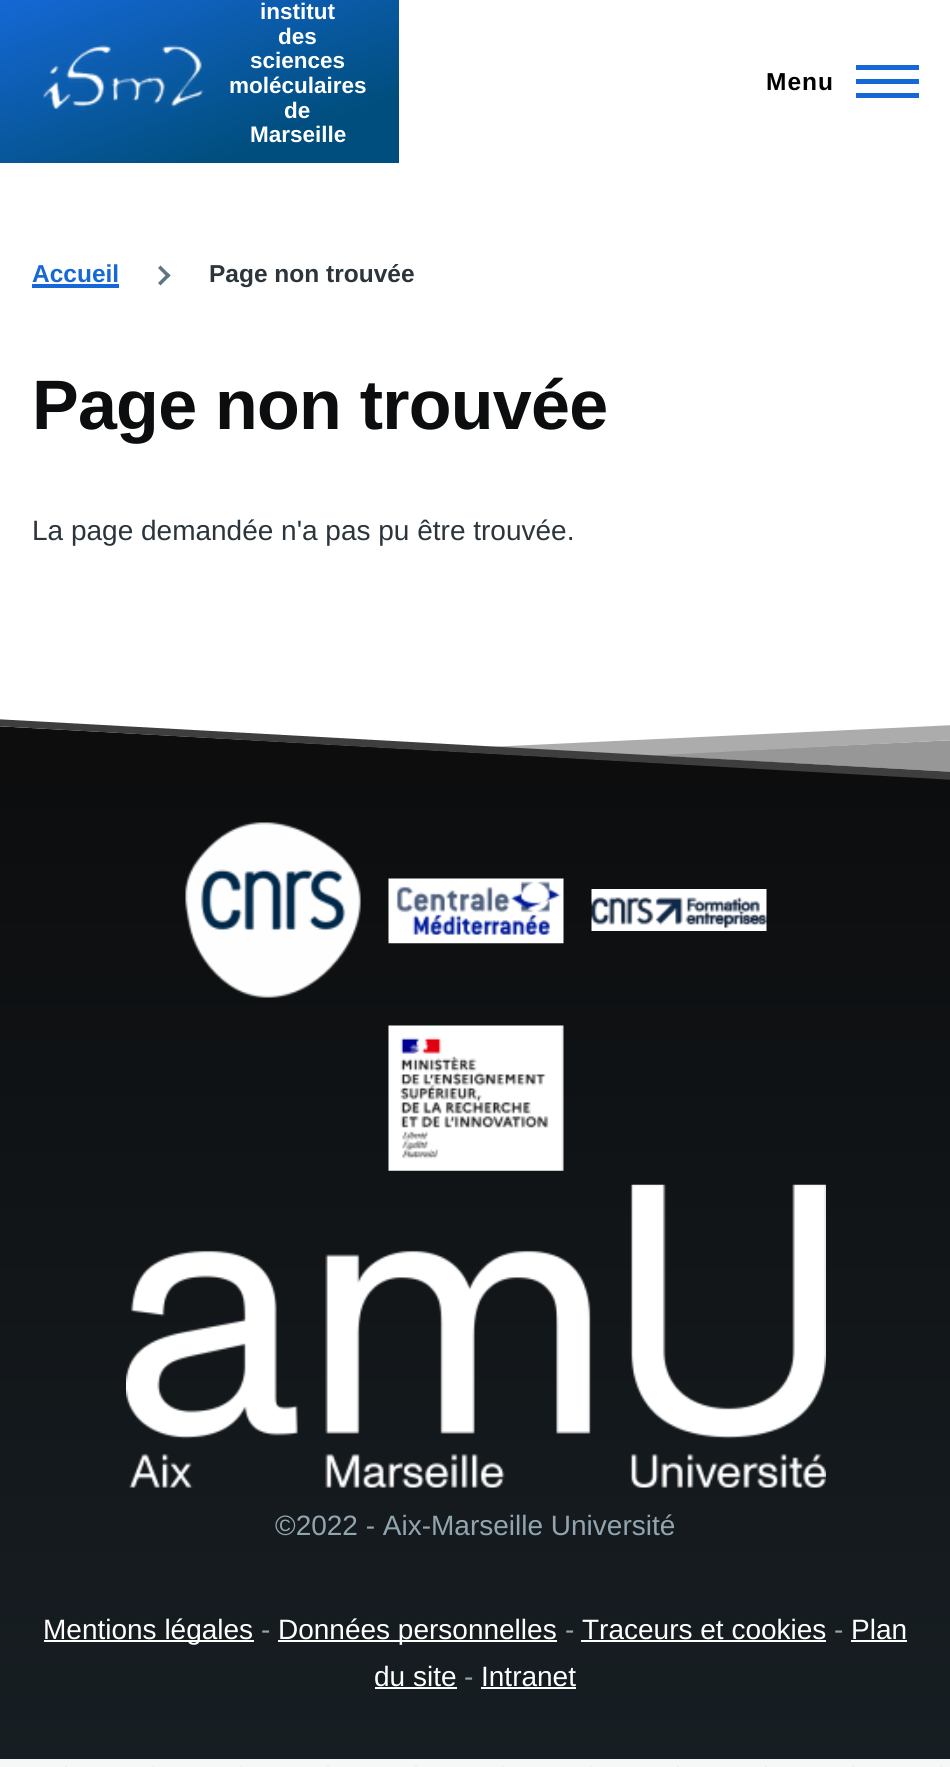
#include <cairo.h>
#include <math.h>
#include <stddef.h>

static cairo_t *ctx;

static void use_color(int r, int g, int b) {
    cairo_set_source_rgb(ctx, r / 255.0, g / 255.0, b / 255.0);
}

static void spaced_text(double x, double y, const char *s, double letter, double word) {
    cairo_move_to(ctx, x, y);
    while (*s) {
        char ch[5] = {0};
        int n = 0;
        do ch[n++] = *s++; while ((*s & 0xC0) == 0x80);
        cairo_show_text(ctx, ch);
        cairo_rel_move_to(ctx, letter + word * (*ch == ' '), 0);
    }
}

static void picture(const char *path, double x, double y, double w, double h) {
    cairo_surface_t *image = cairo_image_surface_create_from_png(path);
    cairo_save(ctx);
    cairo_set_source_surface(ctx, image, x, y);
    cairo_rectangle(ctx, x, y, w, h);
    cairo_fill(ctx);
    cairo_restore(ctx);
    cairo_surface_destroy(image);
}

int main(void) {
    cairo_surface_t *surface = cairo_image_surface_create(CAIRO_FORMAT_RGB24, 950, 1767);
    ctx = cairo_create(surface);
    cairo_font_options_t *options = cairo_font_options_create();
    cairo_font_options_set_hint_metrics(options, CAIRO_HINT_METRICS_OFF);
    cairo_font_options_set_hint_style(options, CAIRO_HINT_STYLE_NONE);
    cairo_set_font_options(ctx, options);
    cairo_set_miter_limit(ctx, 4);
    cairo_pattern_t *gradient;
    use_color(246, 248, 248);
    cairo_paint(ctx);
    picture("img1.png", 65, 1765, 877, 2);
    use_color(255, 255, 255);
    cairo_rectangle(ctx, 0, 0, 950, 779);
    cairo_fill(ctx);
    gradient = cairo_pattern_create_linear(150, -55, 249, 217);
    cairo_pattern_add_color_stop_rgba(gradient, 0, 0.082, 0.408, 0.835, 1);
    cairo_pattern_add_color_stop_rgba(gradient, 0.79, 0, 0.306, 0.49, 1);
    cairo_set_source(ctx, gradient);
    cairo_pattern_destroy(gradient);
    cairo_rectangle(ctx, 0, 0, 399, 163);
    cairo_fill(ctx);
    picture("img2.png", 42, 45, 162, 65);
    cairo_select_font_face(ctx, "Liberation Sans", CAIRO_FONT_SLANT_NORMAL, CAIRO_FONT_WEIGHT_BOLD);
    cairo_set_font_size(ctx, 22.5);
    use_color(255, 255, 255);
    cairo_move_to(ctx, 260, 19);
    cairo_show_text(ctx, "institut");
    cairo_move_to(ctx, 278, 44);
    cairo_show_text(ctx, "des");
    cairo_move_to(ctx, 250, 68);
    cairo_show_text(ctx, "sciences");
    cairo_move_to(ctx, 229, 93);
    cairo_show_text(ctx, "moléculaires");
    cairo_move_to(ctx, 284, 118);
    cairo_show_text(ctx, "de");
    cairo_move_to(ctx, 250, 142);
    cairo_show_text(ctx, "Marseille");
    cairo_set_font_size(ctx, 24.5);
    use_color(0, 0, 0);
    spaced_text(766, 90, "Menu", 1, 0);
    use_color(21, 104, 213);
    cairo_rectangle(ctx, 856, 79, 63, 5);
    cairo_fill(ctx);
    cairo_rectangle(ctx, 856, 65, 63, 5);
    cairo_fill(ctx);
    cairo_rectangle(ctx, 856, 93, 63, 5);
    cairo_fill(ctx);
    cairo_move_to(ctx, 32, 282);
    cairo_show_text(ctx, "Accueil");
    cairo_rectangle(ctx, 32, 284, 87, 4);
    cairo_fill(ctx);
    use_color(95, 117, 129);
    cairo_new_path(ctx);
    cairo_move_to(ctx, 160.5, 265.5);
    cairo_line_to(ctx, 170.5, 275.5);
    cairo_line_to(ctx, 168, 278);
    cairo_line_to(ctx, 158, 268);
    cairo_close_path(ctx);
    cairo_fill(ctx);
    cairo_new_path(ctx);
    cairo_move_to(ctx, 168, 273);
    cairo_line_to(ctx, 170.5, 275.5);
    cairo_line_to(ctx, 160.5, 285.5);
    cairo_line_to(ctx, 158, 283);
    cairo_close_path(ctx);
    cairo_fill(ctx);
    use_color(43, 53, 59);
    cairo_move_to(ctx, 209, 282);
    cairo_show_text(ctx, "Page non trouvée");
    cairo_set_font_size(ctx, 70);
    use_color(11, 13, 15);
    spaced_text(32, 429, "Page non trouvée", -0.75, 0);
    cairo_select_font_face(ctx, "Liberation Sans", CAIRO_FONT_SLANT_NORMAL, CAIRO_FONT_WEIGHT_NORMAL);
    cairo_set_font_size(ctx, 28);
    use_color(43, 53, 59);
    cairo_move_to(ctx, 32, 540);
    cairo_show_text(ctx, "La page demandée n'a pas pu être trouvée.");
    gradient = cairo_pattern_create_linear(475, 780, 475, 1759);
    cairo_pattern_add_color_stop_rgba(gradient, 0, 0.047, 0.051, 0.055, 1);
    cairo_pattern_add_color_stop_rgba(gradient, 1, 0.09, 0.118, 0.137, 1);
    cairo_set_source(ctx, gradient);
    cairo_pattern_destroy(gradient);
    cairo_rectangle(ctx, 0, 781, 950, 978);
    cairo_fill(ctx);
    use_color(151, 151, 151);
    cairo_new_path(ctx);
    cairo_move_to(ctx, 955, 740);
    cairo_line_to(ctx, 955, 772);
    cairo_line_to(ctx, 641, 755);
    cairo_close_path(ctx);
    cairo_fill(ctx);
    use_color(172, 172, 172);
    cairo_new_path(ctx);
    cairo_move_to(ctx, 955, 725);
    cairo_line_to(ctx, 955, 740);
    cairo_line_to(ctx, 641, 756);
    cairo_line_to(ctx, 487, 747);
    cairo_close_path(ctx);
    cairo_fill(ctx);
    use_color(13, 13, 13);
    cairo_new_path(ctx);
    cairo_move_to(ctx, -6, 781);
    cairo_line_to(ctx, -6, 726);
    cairo_line_to(ctx, 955, 779);
    cairo_line_to(ctx, 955, 781);
    cairo_close_path(ctx);
    cairo_fill(ctx);
    use_color(62, 62, 62);
    cairo_new_path(ctx);
    cairo_move_to(ctx, -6, 719);
    cairo_line_to(ctx, 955, 772);
    cairo_line_to(ctx, 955, 780);
    cairo_line_to(ctx, -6, 726);
    cairo_close_path(ctx);
    cairo_fill(ctx);
    picture("img3.png", 185, 822, 176, 176);
    picture("img4.png", 388, 878, 176, 66);
    picture("img5.png", 591, 889, 176, 42);
    picture("img6.png", 388, 1025, 176, 146);
    picture("img7.png", 126, 1184, 700, 304);
    use_color(146, 165, 175);
    cairo_move_to(ctx, 275, 1535);
    cairo_show_text(ctx, "©2022 - Aix-Marseille Université");
    use_color(255, 255, 255);
    cairo_rectangle(ctx, 44, 1640, 210, 2);
    cairo_fill(ctx);
    cairo_move_to(ctx, 43, 1639);
    cairo_show_text(ctx, "Mentions légales");
    use_color(146, 165, 175);
    cairo_move_to(ctx, 261, 1639);
    cairo_show_text(ctx, "-");
    use_color(255, 255, 255);
    cairo_rectangle(ctx, 278, 1640, 279, 2);
    cairo_fill(ctx);
    cairo_move_to(ctx, 278, 1639);
    cairo_show_text(ctx, "Données personnelles");
    use_color(146, 165, 175);
    cairo_move_to(ctx, 565, 1639);
    cairo_show_text(ctx, "-");
    use_color(255, 255, 255);
    cairo_move_to(ctx, 582, 1639);
    cairo_show_text(ctx, "Traceurs et cookies");
    cairo_rectangle(ctx, 581, 1640, 245, 2);
    cairo_fill(ctx);
    use_color(146, 165, 175);
    cairo_move_to(ctx, 834, 1639);
    cairo_show_text(ctx, "-");
    use_color(255, 255, 255);
    cairo_move_to(ctx, 851, 1639);
    cairo_show_text(ctx, "Plan");
    cairo_rectangle(ctx, 851, 1640, 56, 2);
    cairo_fill(ctx);
    cairo_move_to(ctx, 374, 1686);
    cairo_show_text(ctx, "du site");
    cairo_rectangle(ctx, 375, 1687, 82, 2);
    cairo_fill(ctx);
    use_color(146, 165, 175);
    cairo_move_to(ctx, 464, 1686);
    cairo_show_text(ctx, "-");
    use_color(255, 255, 255);
    cairo_move_to(ctx, 481, 1686);
    cairo_show_text(ctx, "Intranet");
    cairo_rectangle(ctx, 481, 1687, 95, 2);
    cairo_fill(ctx);
    cairo_surface_write_to_png(surface, "result.png");
    cairo_font_options_destroy(options);
    cairo_destroy(ctx);
    cairo_surface_destroy(surface);
    return 0;
}
